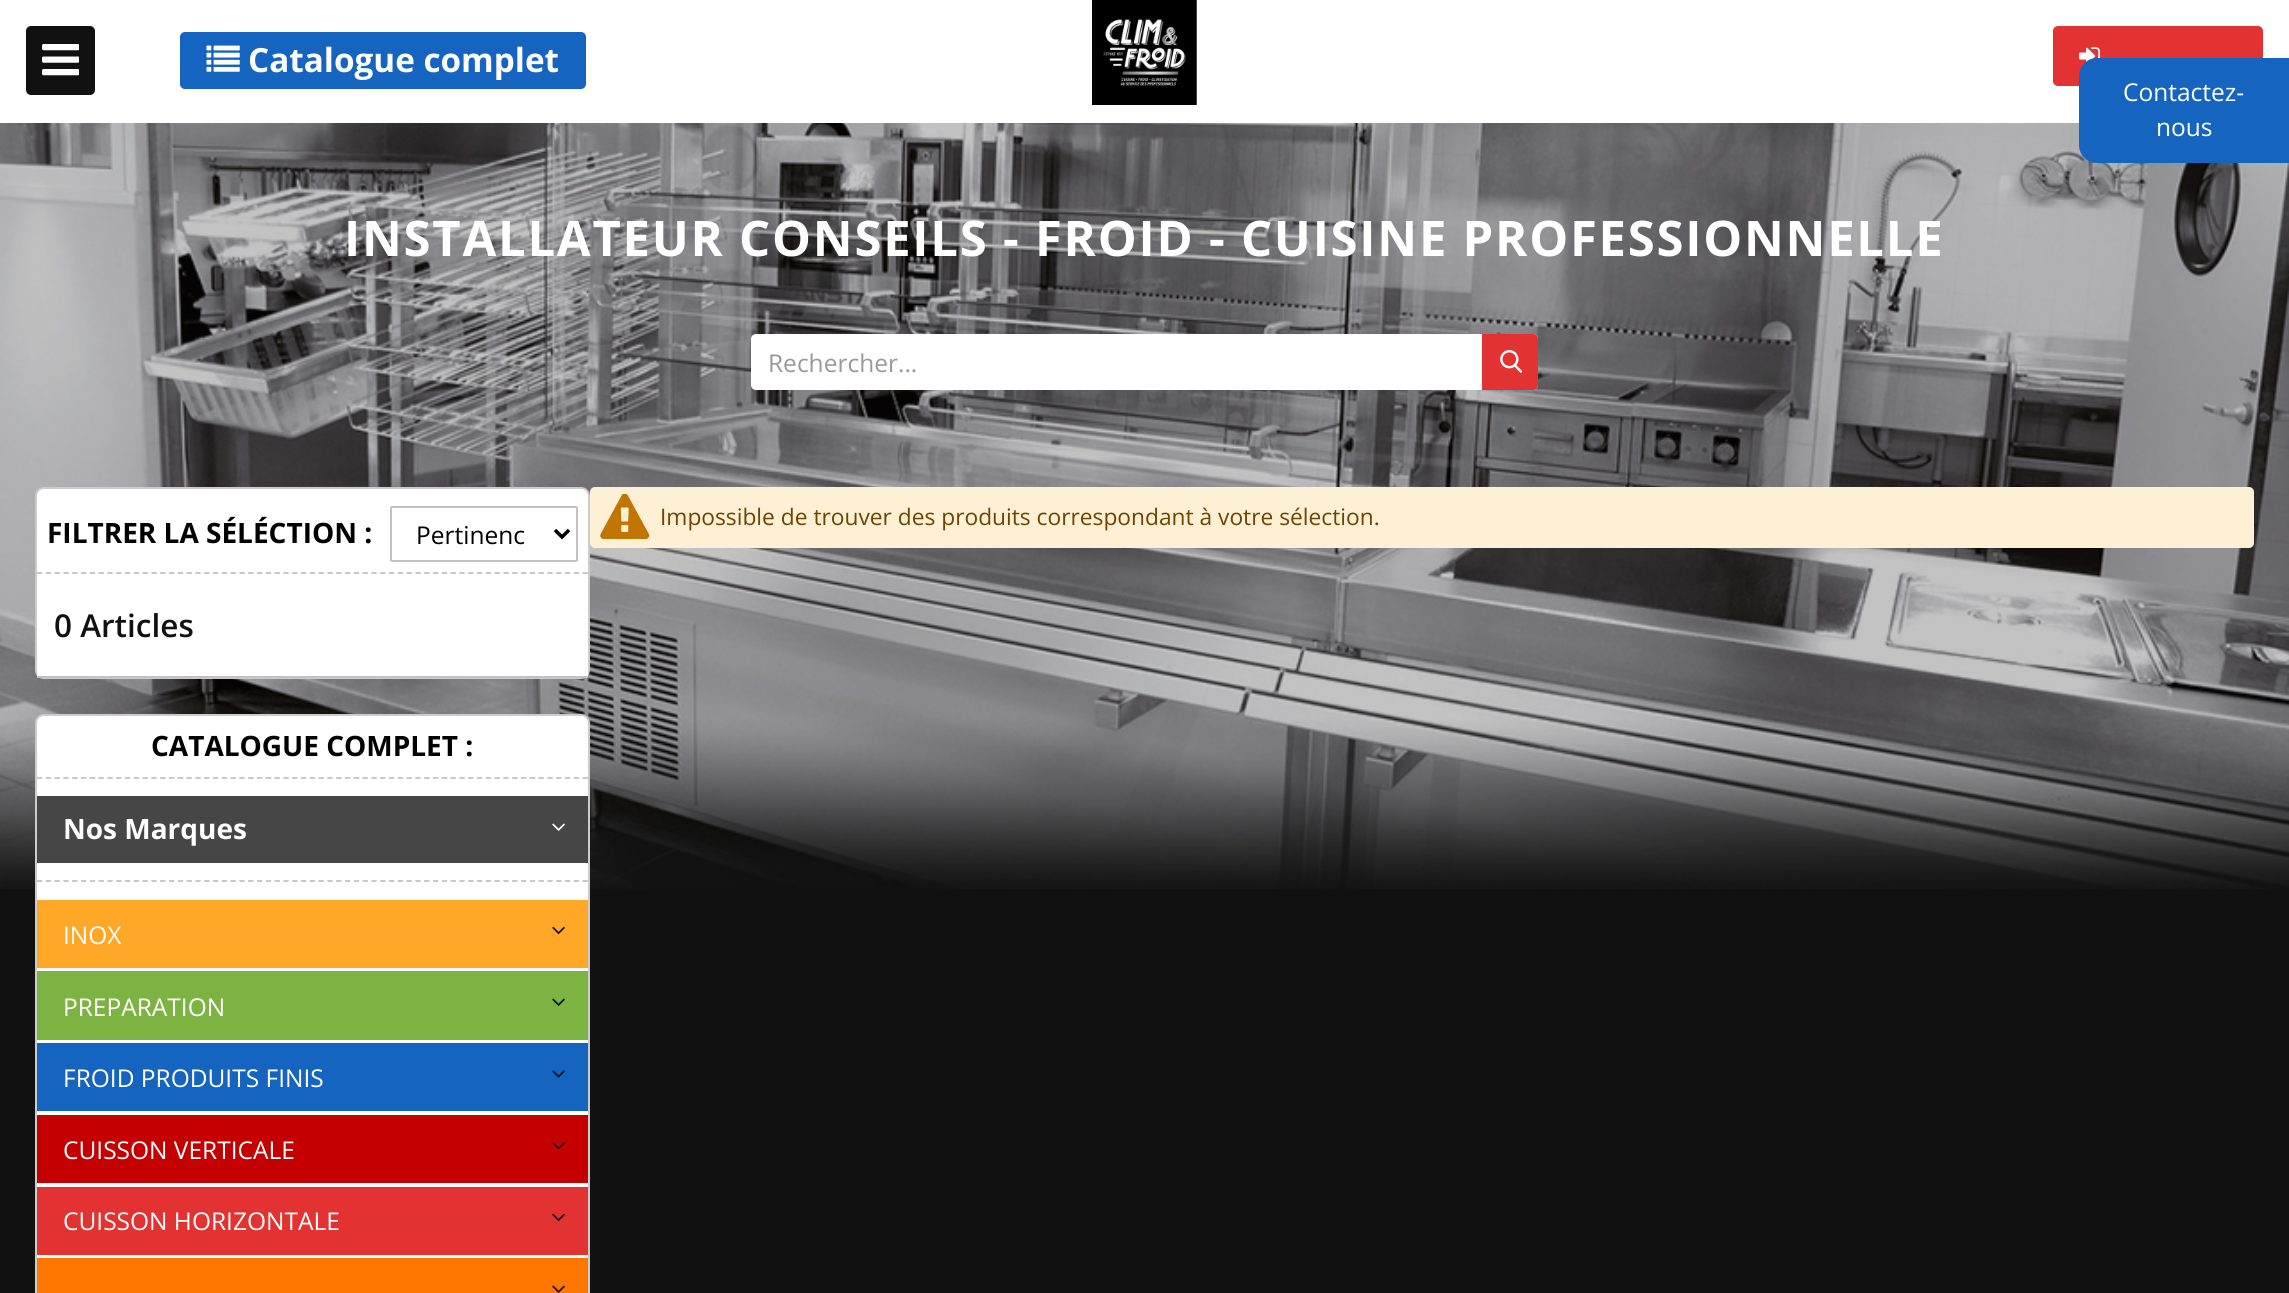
#include <cairo.h>
#include <math.h>
#include <stddef.h>

static cairo_t *ctx;

static void use_color(int r, int g, int b) {
    cairo_set_source_rgb(ctx, r / 255.0, g / 255.0, b / 255.0);
}

static void spaced_text(double x, double y, const char *s, double letter, double word) {
    cairo_move_to(ctx, x, y);
    while (*s) {
        char ch[5] = {0};
        int n = 0;
        do ch[n++] = *s++; while ((*s & 0xC0) == 0x80);
        cairo_show_text(ctx, ch);
        cairo_rel_move_to(ctx, letter + word * (*ch == ' '), 0);
    }
}

static void round_rect(double x, double y, double w, double h, double r) {
    cairo_new_sub_path(ctx);
    cairo_arc(ctx, x + w - r, y + h - r, r, 0, M_PI / 2);
    cairo_arc(ctx, x + r, y + h - r, r, M_PI / 2, M_PI);
    cairo_arc(ctx, x + r, y + r, r, M_PI, 1.5 * M_PI);
    cairo_arc(ctx, x + w - r, y + r, r, 1.5 * M_PI, 2 * M_PI);
    cairo_close_path(ctx);
}

static void picture(const char *path, double x, double y, double w, double h) {
    cairo_surface_t *image = cairo_image_surface_create_from_png(path);
    cairo_save(ctx);
    cairo_set_source_surface(ctx, image, x, y);
    cairo_rectangle(ctx, x, y, w, h);
    cairo_fill(ctx);
    cairo_restore(ctx);
    cairo_surface_destroy(image);
}

int main(void) {
    cairo_surface_t *surface = cairo_image_surface_create(CAIRO_FORMAT_RGB24, 2289, 1293);
    ctx = cairo_create(surface);
    cairo_font_options_t *options = cairo_font_options_create();
    cairo_font_options_set_hint_metrics(options, CAIRO_HINT_METRICS_OFF);
    cairo_font_options_set_hint_style(options, CAIRO_HINT_STYLE_NONE);
    cairo_set_font_options(ctx, options);
    cairo_set_miter_limit(ctx, 4);
    use_color(17, 17, 17);
    cairo_paint(ctx);
    picture("img1.png", 0, 123, 2289, 766);
    use_color(255, 255, 255);
    cairo_rectangle(ctx, 0, 0, 2289, 123);
    cairo_fill(ctx);
    use_color(17, 17, 17);
    round_rect(26, 26, 69, 69, 5);
    cairo_fill(ctx);
    picture("img2.png", 42, 44, 37, 32);
    use_color(21, 101, 192);
    round_rect(180, 32, 406, 57, 5);
    cairo_fill(ctx);
    picture("img3.png", 206, 45, 34, 27);
    cairo_select_font_face(ctx, "Open Sans", CAIRO_FONT_SLANT_NORMAL, CAIRO_FONT_WEIGHT_BOLD);
    cairo_set_font_size(ctx, 33.25);
    use_color(255, 255, 255);
    cairo_move_to(ctx, 248, 72);
    cairo_show_text(ctx, "Catalogue complet");
    picture("img4.png", 1092, 0, 105, 105);
    use_color(226, 50, 50);
    round_rect(2053, 26, 210, 60, 5);
    cairo_fill(ctx);
    picture("img5.png", 2079, 47, 21, 15);
    cairo_set_font_size(ctx, 49);
    use_color(255, 255, 255);
    spaced_text(344, 256, "INSTALLATEUR CONSEILS - FROID - CUISINE PROFESSIONNELLE", 1.75, 0);
    round_rect(751, 334, 787, 56, 5);
    cairo_fill(ctx);
    cairo_select_font_face(ctx, "Open Sans", CAIRO_FONT_SLANT_NORMAL, CAIRO_FONT_WEIGHT_NORMAL);
    cairo_set_font_size(ctx, 24.5);
    use_color(153, 153, 153);
    cairo_move_to(ctx, 768, 372);
    cairo_show_text(ctx, "Rechercher...");
    use_color(226, 50, 50);
    cairo_new_path(ctx);
    cairo_move_to(ctx, 1482, 334);
    cairo_line_to(ctx, 1533, 334);
    cairo_curve_to(ctx, 1536, 334, 1538, 336, 1538, 339);
    cairo_line_to(ctx, 1538, 385);
    cairo_curve_to(ctx, 1538, 388, 1536, 390, 1533, 390);
    cairo_line_to(ctx, 1482, 390);
    cairo_close_path(ctx);
    cairo_fill(ctx);
    picture("img6.png", 1500, 350, 23, 23);
    use_color(255, 255, 255);
    round_rect(36, 488, 553, 190, 8);
    cairo_fill_preserve(ctx);
    use_color(204, 204, 204);
    cairo_stroke(ctx);
    cairo_new_path(ctx);
    cairo_move_to(ctx, 37, 573);
    cairo_line_to(ctx, 588, 573);
    use_color(194, 194, 194);
    cairo_set_line_width(ctx, 1.8);
    cairo_set_dash(ctx, (double[]){5.25, 3.55}, 2, 0);
    cairo_stroke(ctx);
    cairo_select_font_face(ctx, "Open Sans", CAIRO_FONT_SLANT_NORMAL, CAIRO_FONT_WEIGHT_BOLD);
    cairo_set_font_size(ctx, 28);
    use_color(0, 0, 0);
    cairo_move_to(ctx, 47, 543);
    cairo_show_text(ctx, "FILTRER LA SÉLÉCTION :");
    round_rect(391, 507, 186, 54, 1);
    use_color(194, 194, 194);
    cairo_set_line_width(ctx, 2);
    cairo_set_dash(ctx, NULL, 0, 0);
    cairo_stroke(ctx);
    cairo_new_path(ctx);
    cairo_move_to(ctx, 555, 530);
    cairo_line_to(ctx, 562, 537);
    cairo_line_to(ctx, 569, 530);
    use_color(0, 0, 0);
    cairo_set_line_width(ctx, 3.5);
    cairo_stroke(ctx);
    cairo_select_font_face(ctx, "Open Sans", CAIRO_FONT_SLANT_NORMAL, CAIRO_FONT_WEIGHT_NORMAL);
    cairo_set_font_size(ctx, 24.5);
    cairo_move_to(ctx, 416, 544);
    cairo_show_text(ctx, "Pertinenc");
    use_color(255, 255, 255);
    cairo_rectangle(ctx, 37, 670, 551, 6);
    cairo_fill(ctx);
    use_color(194, 194, 194);
    cairo_rectangle(ctx, 37, 676, 551, 2);
    cairo_fill(ctx);
    cairo_select_font_face(ctx, "Open Sans SemiBold", CAIRO_FONT_SLANT_NORMAL, CAIRO_FONT_WEIGHT_NORMAL);
    cairo_set_font_size(ctx, 31.5);
    use_color(17, 17, 17);
    cairo_move_to(ctx, 54, 637);
    cairo_show_text(ctx, "0 Articles");
    use_color(253, 240, 213);
    round_rect(590, 487, 1664, 61, 5);
    cairo_fill(ctx);
    picture("img7.png", 600, 494, 50, 45);
    cairo_select_font_face(ctx, "Open Sans", CAIRO_FONT_SLANT_NORMAL, CAIRO_FONT_WEIGHT_NORMAL);
    cairo_set_font_size(ctx, 22.75);
    use_color(111, 68, 0);
    cairo_move_to(ctx, 660, 525);
    cairo_show_text(ctx, "Impossible de trouver des produits correspondant à votre sélection.");
    use_color(255, 255, 255);
    round_rect(36, 715, 553, 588, 8);
    cairo_fill_preserve(ctx);
    use_color(204, 204, 204);
    cairo_set_line_width(ctx, 2);
    cairo_stroke(ctx);
    cairo_new_path(ctx);
    cairo_move_to(ctx, 37, 778);
    cairo_line_to(ctx, 588, 778);
    use_color(194, 194, 194);
    cairo_set_line_width(ctx, 1.8);
    cairo_set_dash(ctx, (double[]){5.25, 3.55}, 2, 0);
    cairo_stroke(ctx);
    cairo_select_font_face(ctx, "Open Sans", CAIRO_FONT_SLANT_NORMAL, CAIRO_FONT_WEIGHT_BOLD);
    cairo_set_font_size(ctx, 28);
    use_color(0, 0, 0);
    cairo_move_to(ctx, 151, 756);
    cairo_show_text(ctx, "CATALOGUE COMPLET :");
    use_color(70, 70, 70);
    cairo_rectangle(ctx, 37, 796, 551, 67);
    cairo_fill(ctx);
    use_color(255, 255, 255);
    cairo_move_to(ctx, 63, 839);
    cairo_show_text(ctx, "Nos Marques");
    picture("img8.png", 552, 823, 13, 8);
    cairo_new_path(ctx);
    cairo_move_to(ctx, 37, 881);
    cairo_line_to(ctx, 588, 881);
    use_color(194, 194, 194);
    cairo_stroke(ctx);
    use_color(255, 167, 38);
    cairo_rectangle(ctx, 37, 900, 551, 68);
    cairo_fill(ctx);
    cairo_select_font_face(ctx, "Open Sans", CAIRO_FONT_SLANT_NORMAL, CAIRO_FONT_WEIGHT_NORMAL);
    cairo_set_font_size(ctx, 24.5);
    use_color(255, 255, 255);
    cairo_move_to(ctx, 63, 944);
    cairo_show_text(ctx, "INOX");
    picture("img9.png", 552, 926, 13, 9);
    use_color(124, 179, 66);
    cairo_rectangle(ctx, 37, 971, 551, 69);
    cairo_fill(ctx);
    use_color(255, 255, 255);
    cairo_move_to(ctx, 63, 1016);
    cairo_show_text(ctx, "PREPARATION");
    picture("img10.png", 552, 998, 13, 8);
    use_color(21, 101, 192);
    cairo_rectangle(ctx, 37, 1043, 551, 68);
    cairo_fill(ctx);
    use_color(255, 255, 255);
    cairo_move_to(ctx, 63, 1087);
    cairo_show_text(ctx, "FROID PRODUITS FINIS");
    picture("img11.png", 552, 1070, 13, 8);
    use_color(197, 0, 0);
    cairo_rectangle(ctx, 37, 1115, 551, 68);
    cairo_fill(ctx);
    use_color(255, 255, 255);
    cairo_move_to(ctx, 63, 1159);
    cairo_show_text(ctx, "CUISSON VERTICALE");
    picture("img12.png", 552, 1142, 13, 8);
    use_color(226, 50, 50);
    cairo_rectangle(ctx, 37, 1187, 551, 68);
    cairo_fill(ctx);
    use_color(255, 255, 255);
    cairo_move_to(ctx, 63, 1230);
    cairo_show_text(ctx, "CUISSON HORIZONTALE");
    picture("img13.png", 552, 1213, 13, 9);
    use_color(255, 118, 0);
    cairo_rectangle(ctx, 37, 1258, 551, 35);
    cairo_fill(ctx);
    picture("img14.png", 552, 1285, 13, 8);
    use_color(21, 101, 192);
    cairo_new_path(ctx);
    cairo_move_to(ctx, 2097, 58);
    cairo_line_to(ctx, 2289, 58);
    cairo_line_to(ctx, 2289, 163);
    cairo_line_to(ctx, 2097, 163);
    cairo_curve_to(ctx, 2087, 163, 2079, 155, 2079, 145);
    cairo_line_to(ctx, 2079, 76);
    cairo_curve_to(ctx, 2079, 66, 2087, 58, 2097, 58);
    cairo_close_path(ctx);
    cairo_fill(ctx);
    use_color(255, 255, 255);
    cairo_move_to(ctx, 2123, 101);
    cairo_show_text(ctx, "Contactez-");
    cairo_move_to(ctx, 2156, 136);
    cairo_show_text(ctx, "nous");
    cairo_surface_write_to_png(surface, "result.png");
    cairo_font_options_destroy(options);
    cairo_destroy(ctx);
    cairo_surface_destroy(surface);
    return 0;
}
